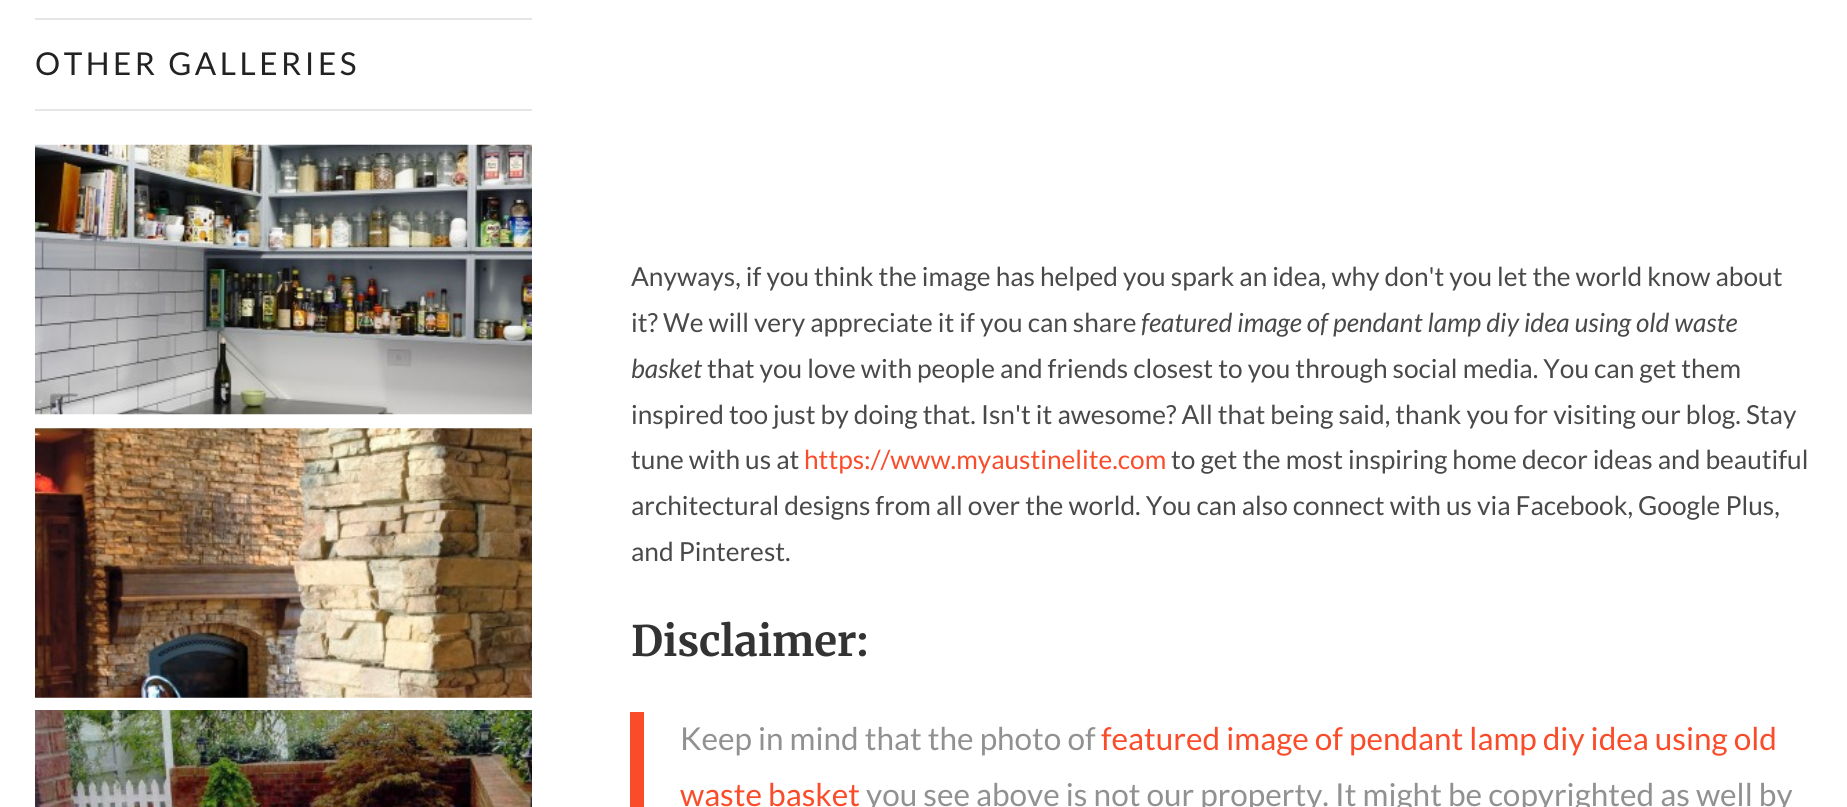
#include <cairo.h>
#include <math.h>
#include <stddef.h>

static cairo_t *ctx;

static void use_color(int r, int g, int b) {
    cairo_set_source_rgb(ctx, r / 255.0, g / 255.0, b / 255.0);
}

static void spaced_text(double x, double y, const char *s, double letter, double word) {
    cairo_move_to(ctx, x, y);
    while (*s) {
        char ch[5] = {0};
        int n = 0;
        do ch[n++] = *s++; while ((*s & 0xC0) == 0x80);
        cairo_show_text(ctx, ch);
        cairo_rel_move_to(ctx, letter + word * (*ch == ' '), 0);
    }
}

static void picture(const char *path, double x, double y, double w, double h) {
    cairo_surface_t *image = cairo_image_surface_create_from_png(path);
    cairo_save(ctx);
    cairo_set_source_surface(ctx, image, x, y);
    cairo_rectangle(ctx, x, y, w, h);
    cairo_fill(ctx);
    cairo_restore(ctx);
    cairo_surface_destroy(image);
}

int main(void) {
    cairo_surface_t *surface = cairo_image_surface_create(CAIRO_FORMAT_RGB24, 1847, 807);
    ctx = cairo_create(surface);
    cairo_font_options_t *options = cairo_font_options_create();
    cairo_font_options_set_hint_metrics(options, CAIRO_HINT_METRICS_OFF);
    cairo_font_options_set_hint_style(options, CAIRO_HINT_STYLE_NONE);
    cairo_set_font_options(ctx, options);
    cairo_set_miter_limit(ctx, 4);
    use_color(255, 255, 255);
    cairo_paint(ctx);
    use_color(230, 230, 230);
    cairo_rectangle(ctx, 35, 18, 497, 2);
    cairo_fill(ctx);
    cairo_rectangle(ctx, 35, 109, 497, 2);
    cairo_fill(ctx);
    cairo_select_font_face(ctx, "Lato", CAIRO_FONT_SLANT_NORMAL, CAIRO_FONT_WEIGHT_NORMAL);
    cairo_set_font_size(ctx, 31.5);
    use_color(34, 34, 34);
    spaced_text(35, 75, "OTHER GALLERIES", 3.5, 0);
    picture("img1.png", 35, 144, 497, 271);
    picture("img2.png", 35, 428, 497, 270);
    picture("img3.png", 35, 710, 497, 97);
    cairo_set_font_size(ctx, 26.25);
    use_color(73, 73, 73);
    cairo_move_to(ctx, 631, 286);
    cairo_show_text(ctx, "Anyways, if you think the image has helped you spark an idea, why don't you let the world know about");
    cairo_move_to(ctx, 631, 332);
    cairo_show_text(ctx, "it? We will very appreciate it if you can share");
    cairo_select_font_face(ctx, "Lato", CAIRO_FONT_SLANT_ITALIC, CAIRO_FONT_WEIGHT_NORMAL);
    cairo_move_to(ctx, 1141, 332);
    cairo_show_text(ctx, "featured image of pendant lamp diy idea using old waste");
    cairo_move_to(ctx, 631, 378);
    cairo_show_text(ctx, "basket");
    cairo_select_font_face(ctx, "Lato", CAIRO_FONT_SLANT_NORMAL, CAIRO_FONT_WEIGHT_NORMAL);
    cairo_move_to(ctx, 707, 378);
    cairo_show_text(ctx, "that you love with people and friends closest to you through social media. You can get them");
    cairo_move_to(ctx, 631, 424);
    cairo_show_text(ctx, "inspired too just by doing that. Isn't it awesome? All that being said, thank you for visiting our blog. Stay");
    cairo_move_to(ctx, 631, 469);
    cairo_show_text(ctx, "tune with us at");
    use_color(250, 76, 42);
    cairo_move_to(ctx, 804, 469);
    cairo_show_text(ctx, "https://www.myaustinelite.com");
    use_color(73, 73, 73);
    cairo_move_to(ctx, 1171, 469);
    cairo_show_text(ctx, "to get the most inspiring home decor ideas and beautiful");
    cairo_move_to(ctx, 631, 515);
    cairo_show_text(ctx, "architectural designs from all over the world. You can also connect with us via Facebook, Google Plus,");
    cairo_move_to(ctx, 631, 561);
    cairo_show_text(ctx, "and Pinterest.");
    cairo_select_font_face(ctx, "Merriweather", CAIRO_FONT_SLANT_NORMAL, CAIRO_FONT_WEIGHT_BOLD);
    cairo_set_font_size(ctx, 42);
    use_color(51, 51, 51);
    cairo_move_to(ctx, 631, 656);
    cairo_show_text(ctx, "Disclaimer:");
    use_color(250, 76, 42);
    cairo_rectangle(ctx, 630, 712, 14, 95);
    cairo_fill(ctx);
    cairo_select_font_face(ctx, "Lato", CAIRO_FONT_SLANT_NORMAL, CAIRO_FONT_WEIGHT_NORMAL);
    cairo_set_font_size(ctx, 31.5);
    use_color(145, 145, 145);
    cairo_move_to(ctx, 680, 750);
    cairo_show_text(ctx, "Keep in mind that the photo of");
    use_color(250, 76, 42);
    cairo_move_to(ctx, 1101, 750);
    cairo_show_text(ctx, "featured image of pendant lamp diy idea using old");
    cairo_move_to(ctx, 680, 806);
    cairo_show_text(ctx, "waste basket");
    use_color(145, 145, 145);
    cairo_move_to(ctx, 866, 806);
    cairo_show_text(ctx, "you see above is not our property. It might be copyrighted as well by");
    cairo_surface_write_to_png(surface, "result.png");
    cairo_font_options_destroy(options);
    cairo_destroy(ctx);
    cairo_surface_destroy(surface);
    return 0;
}
